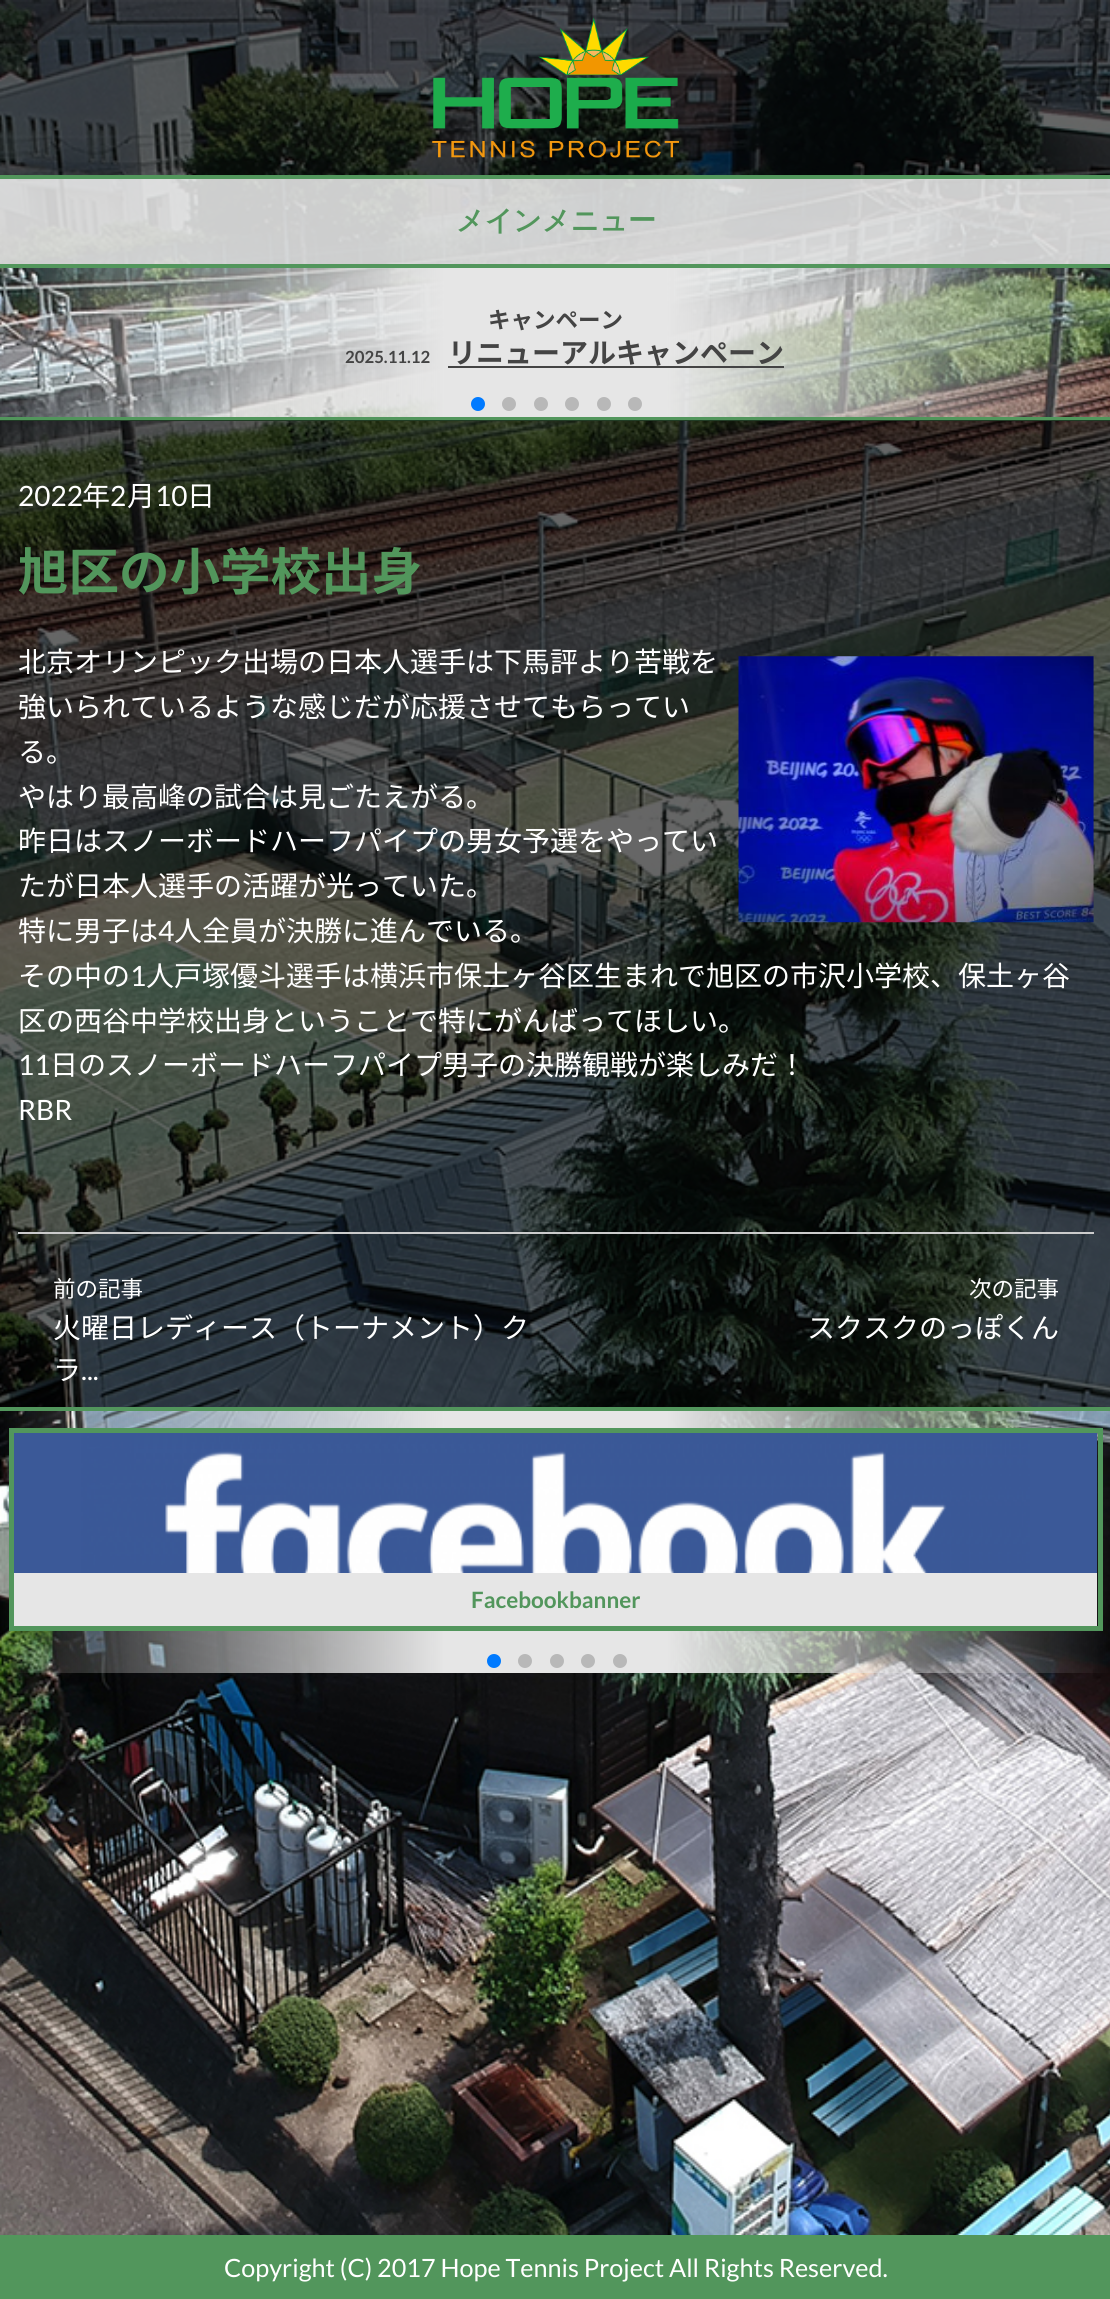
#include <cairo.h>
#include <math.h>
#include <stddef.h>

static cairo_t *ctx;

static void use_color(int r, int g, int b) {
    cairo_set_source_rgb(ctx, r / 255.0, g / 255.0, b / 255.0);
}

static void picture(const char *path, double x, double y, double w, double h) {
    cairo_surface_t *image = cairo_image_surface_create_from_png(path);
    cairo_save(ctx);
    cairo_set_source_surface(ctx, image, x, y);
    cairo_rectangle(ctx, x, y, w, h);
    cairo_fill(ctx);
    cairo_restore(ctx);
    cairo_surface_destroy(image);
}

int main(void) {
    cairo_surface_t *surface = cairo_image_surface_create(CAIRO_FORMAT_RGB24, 1110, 2299);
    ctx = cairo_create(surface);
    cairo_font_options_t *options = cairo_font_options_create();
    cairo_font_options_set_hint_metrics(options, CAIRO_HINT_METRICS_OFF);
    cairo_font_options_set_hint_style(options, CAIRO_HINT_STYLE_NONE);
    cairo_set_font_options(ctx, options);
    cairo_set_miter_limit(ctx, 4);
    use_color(255, 255, 255);
    cairo_paint(ctx);
    picture("img1.png", 0, 0, 1110, 2235);
    cairo_set_source_rgba(ctx, 0, 0, 0, 0.6);
    cairo_rectangle(ctx, 0, 0, 1110, 175);
    cairo_fill(ctx);
    picture("img2.png", 432, 17, 247, 141);
    cairo_rectangle(ctx, 0, 179, 1110, 85);
    cairo_fill(ctx);
    cairo_set_source_rgba(ctx, 1, 1, 1, 0.8);
    cairo_rectangle(ctx, 0, 179, 1110, 85);
    cairo_fill(ctx);
    use_color(82, 150, 92);
    cairo_rectangle(ctx, 0, 175, 1110, 4);
    cairo_fill(ctx);
    cairo_select_font_face(ctx, "WenQuanYi Zen Hei", CAIRO_FONT_SLANT_NORMAL, CAIRO_FONT_WEIGHT_BOLD);
    cairo_set_font_size(ctx, 28);
    cairo_move_to(ctx, 456, 230);
    cairo_show_text(ctx, "メインメニュー");
    cairo_rectangle(ctx, 0, 264, 1110, 4);
    cairo_fill(ctx);
    cairo_select_font_face(ctx, "Noto Sans JP", CAIRO_FONT_SLANT_NORMAL, CAIRO_FONT_WEIGHT_BOLD);
    cairo_set_font_size(ctx, 22.5);
    use_color(68, 68, 68);
    cairo_move_to(ctx, 488, 328);
    cairo_show_text(ctx, "キャンペーン");
    cairo_select_font_face(ctx, "Lato", CAIRO_FONT_SLANT_NORMAL, CAIRO_FONT_WEIGHT_BOLD);
    cairo_set_font_size(ctx, 16.75);
    cairo_move_to(ctx, 345, 363);
    cairo_show_text(ctx, "2025.11.12");
    cairo_select_font_face(ctx, "Noto Sans JP", CAIRO_FONT_SLANT_NORMAL, CAIRO_FONT_WEIGHT_BOLD);
    cairo_set_font_size(ctx, 28);
    cairo_move_to(ctx, 448, 363);
    cairo_show_text(ctx, "リニューアルキャンペーン");
    cairo_rectangle(ctx, 448, 366, 336, 2);
    cairo_fill(ctx);
    use_color(0, 122, 255);
    cairo_arc(ctx, 478, 404, 7, 0, 2 * M_PI);
    cairo_fill(ctx);
    use_color(184, 184, 184);
    cairo_arc(ctx, 509, 404, 7, 0, 2 * M_PI);
    cairo_fill(ctx);
    cairo_arc(ctx, 541, 404, 7, 0, 2 * M_PI);
    cairo_fill(ctx);
    cairo_arc(ctx, 572, 404, 7, 0, 2 * M_PI);
    cairo_fill(ctx);
    cairo_arc(ctx, 604, 404, 7, 0, 2 * M_PI);
    cairo_fill(ctx);
    cairo_arc(ctx, 635, 404, 7, 0, 2 * M_PI);
    cairo_fill(ctx);
    use_color(82, 150, 92);
    cairo_rectangle(ctx, 0, 417, 1110, 4);
    cairo_fill(ctx);
    cairo_set_source_rgba(ctx, 0, 0, 0, 0.6);
    cairo_rectangle(ctx, 0, 420, 1110, 987);
    cairo_fill(ctx);
    cairo_select_font_face(ctx, "Lato", CAIRO_FONT_SLANT_NORMAL, CAIRO_FONT_WEIGHT_NORMAL);
    use_color(255, 255, 255);
    cairo_move_to(ctx, 18, 506);
    cairo_show_text(ctx, "2022");
    cairo_select_font_face(ctx, "Noto Sans JP", CAIRO_FONT_SLANT_NORMAL, CAIRO_FONT_WEIGHT_NORMAL);
    cairo_move_to(ctx, 82, 506);
    cairo_show_text(ctx, "年");
    cairo_select_font_face(ctx, "Lato", CAIRO_FONT_SLANT_NORMAL, CAIRO_FONT_WEIGHT_NORMAL);
    cairo_move_to(ctx, 110, 506);
    cairo_show_text(ctx, "2");
    cairo_select_font_face(ctx, "Noto Sans JP", CAIRO_FONT_SLANT_NORMAL, CAIRO_FONT_WEIGHT_NORMAL);
    cairo_move_to(ctx, 127, 506);
    cairo_show_text(ctx, "月");
    cairo_select_font_face(ctx, "Lato", CAIRO_FONT_SLANT_NORMAL, CAIRO_FONT_WEIGHT_NORMAL);
    cairo_move_to(ctx, 155, 506);
    cairo_show_text(ctx, "10");
    cairo_select_font_face(ctx, "Noto Sans JP", CAIRO_FONT_SLANT_NORMAL, CAIRO_FONT_WEIGHT_NORMAL);
    cairo_move_to(ctx, 187, 506);
    cairo_show_text(ctx, "日");
    cairo_select_font_face(ctx, "Noto Sans JP", CAIRO_FONT_SLANT_NORMAL, CAIRO_FONT_WEIGHT_BOLD);
    cairo_set_font_size(ctx, 50.5);
    use_color(82, 150, 92);
    cairo_move_to(ctx, 18, 590);
    cairo_show_text(ctx, "旭区の小学校出身");
    cairo_select_font_face(ctx, "Noto Sans JP", CAIRO_FONT_SLANT_NORMAL, CAIRO_FONT_WEIGHT_NORMAL);
    cairo_set_font_size(ctx, 28);
    use_color(255, 255, 255);
    cairo_move_to(ctx, 18, 672);
    cairo_show_text(ctx, "北京オリンピック出場の日本人選手は下馬評より苦戦を");
    picture("img3.png", 738, 656, 356, 267);
    cairo_move_to(ctx, 18, 717);
    cairo_show_text(ctx, "強いられているような感じだが応援させてもらってい");
    cairo_move_to(ctx, 18, 762);
    cairo_show_text(ctx, "る。");
    cairo_move_to(ctx, 18, 807);
    cairo_show_text(ctx, "やはり最高峰の試合は見ごたえがる。");
    cairo_move_to(ctx, 18, 851);
    cairo_show_text(ctx, "昨日はスノーボードハーフパイプの男女予選をやってい");
    cairo_move_to(ctx, 18, 896);
    cairo_show_text(ctx, "たが日本人選手の活躍が光っていた。");
    cairo_move_to(ctx, 18, 941);
    cairo_show_text(ctx, "特に男子は");
    cairo_select_font_face(ctx, "Lato", CAIRO_FONT_SLANT_NORMAL, CAIRO_FONT_WEIGHT_NORMAL);
    cairo_move_to(ctx, 158, 941);
    cairo_show_text(ctx, "4");
    cairo_select_font_face(ctx, "Noto Sans JP", CAIRO_FONT_SLANT_NORMAL, CAIRO_FONT_WEIGHT_NORMAL);
    cairo_move_to(ctx, 174, 941);
    cairo_show_text(ctx, "人全員が決勝に進んでいる。");
    cairo_move_to(ctx, 18, 986);
    cairo_show_text(ctx, "その中の");
    cairo_select_font_face(ctx, "Lato", CAIRO_FONT_SLANT_NORMAL, CAIRO_FONT_WEIGHT_NORMAL);
    cairo_move_to(ctx, 130, 986);
    cairo_show_text(ctx, "1");
    cairo_select_font_face(ctx, "Noto Sans JP", CAIRO_FONT_SLANT_NORMAL, CAIRO_FONT_WEIGHT_NORMAL);
    cairo_move_to(ctx, 146, 986);
    cairo_show_text(ctx, "人戸塚優斗選手は横浜市保土ヶ谷区生まれで旭区の市沢小学校、保土ヶ谷");
    cairo_move_to(ctx, 18, 1031);
    cairo_show_text(ctx, "区の西谷中学校出身ということで特にがんばってほしい。");
    cairo_select_font_face(ctx, "Lato", CAIRO_FONT_SLANT_NORMAL, CAIRO_FONT_WEIGHT_NORMAL);
    cairo_move_to(ctx, 18, 1075);
    cairo_show_text(ctx, "11");
    cairo_select_font_face(ctx, "Noto Sans JP", CAIRO_FONT_SLANT_NORMAL, CAIRO_FONT_WEIGHT_NORMAL);
    cairo_move_to(ctx, 50, 1075);
    cairo_show_text(ctx, "日のスノーボードハーフパイプ男子の決勝観戦が楽しみだ！");
    cairo_select_font_face(ctx, "Lato", CAIRO_FONT_SLANT_NORMAL, CAIRO_FONT_WEIGHT_NORMAL);
    cairo_move_to(ctx, 18, 1120);
    cairo_show_text(ctx, "RBR");
    use_color(204, 204, 204);
    cairo_rectangle(ctx, 18, 1232, 1076, 2);
    cairo_fill(ctx);
    cairo_select_font_face(ctx, "Noto Sans JP", CAIRO_FONT_SLANT_NORMAL, CAIRO_FONT_WEIGHT_NORMAL);
    cairo_set_font_size(ctx, 22.5);
    use_color(255, 255, 255);
    cairo_move_to(ctx, 53, 1297);
    cairo_show_text(ctx, "前の記事");
    cairo_set_font_size(ctx, 28);
    cairo_move_to(ctx, 53, 1338);
    cairo_show_text(ctx, "火曜日レディース（トーナメント）ク");
    cairo_move_to(ctx, 53, 1380);
    cairo_show_text(ctx, "ラ");
    cairo_select_font_face(ctx, "Lato", CAIRO_FONT_SLANT_NORMAL, CAIRO_FONT_WEIGHT_NORMAL);
    cairo_move_to(ctx, 81, 1380);
    cairo_show_text(ctx, "...");
    cairo_select_font_face(ctx, "Noto Sans JP", CAIRO_FONT_SLANT_NORMAL, CAIRO_FONT_WEIGHT_NORMAL);
    cairo_set_font_size(ctx, 22.5);
    cairo_move_to(ctx, 969, 1297);
    cairo_show_text(ctx, "次の記事");
    cairo_set_font_size(ctx, 28);
    cairo_move_to(ctx, 807, 1338);
    cairo_show_text(ctx, "スクスクのっぽくん");
    use_color(82, 150, 92);
    cairo_rectangle(ctx, 0, 1407, 1110, 4);
    cairo_fill(ctx);
    cairo_rectangle(ctx, 11.5, 1430.5, 1089, 198);
    cairo_set_line_width(ctx, 5);
    cairo_stroke(ctx);
    picture("img4.png", 14, 1433, 1083, 140);
    use_color(230, 230, 230);
    cairo_rectangle(ctx, 14, 1573, 1083, 53);
    cairo_fill(ctx);
    cairo_select_font_face(ctx, "Lato", CAIRO_FONT_SLANT_NORMAL, CAIRO_FONT_WEIGHT_BOLD);
    cairo_set_font_size(ctx, 22.5);
    use_color(82, 150, 92);
    cairo_move_to(ctx, 471, 1608);
    cairo_show_text(ctx, "Facebookbanner");
    use_color(0, 122, 255);
    cairo_new_path(ctx);
    cairo_arc(ctx, 494, 1661, 7, 0, 2 * M_PI);
    cairo_fill(ctx);
    use_color(184, 184, 184);
    cairo_arc(ctx, 525, 1661, 7, 0, 2 * M_PI);
    cairo_fill(ctx);
    cairo_arc(ctx, 557, 1661, 7, 0, 2 * M_PI);
    cairo_fill(ctx);
    cairo_arc(ctx, 588, 1661, 7, 0, 2 * M_PI);
    cairo_fill(ctx);
    cairo_arc(ctx, 620, 1661, 7, 0, 2 * M_PI);
    cairo_fill(ctx);
    use_color(82, 150, 92);
    cairo_rectangle(ctx, 0, 2235, 1110, 64);
    cairo_fill(ctx);
    cairo_select_font_face(ctx, "Lato", CAIRO_FONT_SLANT_NORMAL, CAIRO_FONT_WEIGHT_NORMAL);
    cairo_set_font_size(ctx, 25.2);
    use_color(255, 255, 255);
    cairo_move_to(ctx, 224, 2277);
    cairo_show_text(ctx, "Copyright (C) 2017 Hope Tennis Project All Rights Reserved.");
    cairo_surface_write_to_png(surface, "result.png");
    cairo_font_options_destroy(options);
    cairo_destroy(ctx);
    cairo_surface_destroy(surface);
    return 0;
}
